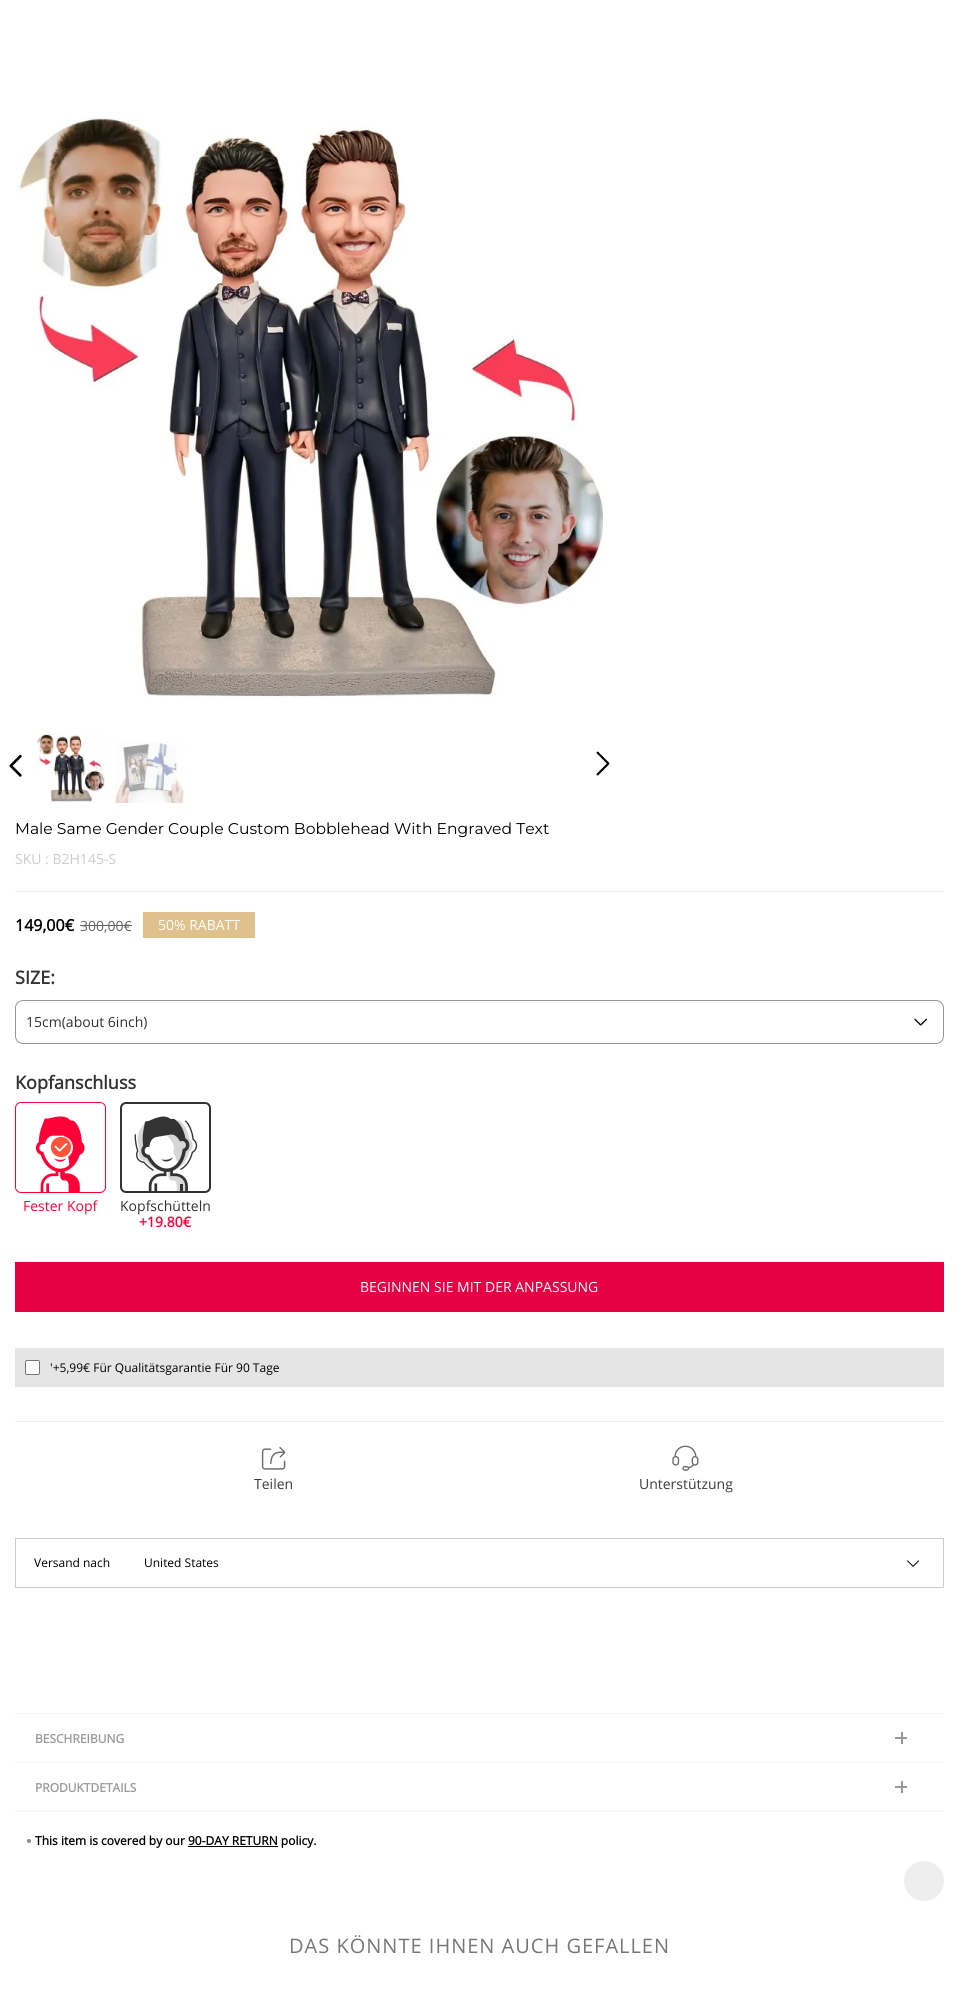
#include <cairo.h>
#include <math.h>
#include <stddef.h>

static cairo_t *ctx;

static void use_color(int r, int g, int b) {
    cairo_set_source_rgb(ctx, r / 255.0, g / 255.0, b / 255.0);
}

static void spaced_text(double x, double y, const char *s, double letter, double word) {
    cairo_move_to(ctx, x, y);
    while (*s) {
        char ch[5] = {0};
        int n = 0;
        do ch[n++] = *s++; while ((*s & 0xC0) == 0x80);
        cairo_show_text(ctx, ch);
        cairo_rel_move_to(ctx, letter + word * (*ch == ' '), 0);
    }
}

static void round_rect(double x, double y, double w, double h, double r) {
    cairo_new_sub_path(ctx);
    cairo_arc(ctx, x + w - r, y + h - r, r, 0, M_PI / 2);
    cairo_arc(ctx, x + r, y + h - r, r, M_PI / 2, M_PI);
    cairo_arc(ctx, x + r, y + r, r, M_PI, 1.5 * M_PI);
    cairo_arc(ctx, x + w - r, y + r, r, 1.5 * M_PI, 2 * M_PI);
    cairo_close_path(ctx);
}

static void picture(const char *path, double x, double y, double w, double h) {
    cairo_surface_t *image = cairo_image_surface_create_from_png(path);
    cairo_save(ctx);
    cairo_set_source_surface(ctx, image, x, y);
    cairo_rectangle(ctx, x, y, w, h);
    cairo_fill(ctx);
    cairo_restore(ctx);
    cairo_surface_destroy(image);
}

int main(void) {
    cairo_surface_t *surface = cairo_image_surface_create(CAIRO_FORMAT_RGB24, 959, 1991);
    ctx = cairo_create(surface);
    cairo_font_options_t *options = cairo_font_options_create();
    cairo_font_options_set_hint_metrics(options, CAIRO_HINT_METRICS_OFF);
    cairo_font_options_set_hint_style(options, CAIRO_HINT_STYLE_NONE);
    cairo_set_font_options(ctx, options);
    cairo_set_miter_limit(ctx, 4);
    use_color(255, 255, 255);
    cairo_paint(ctx);
    picture("img1.png", 19, 118, 586, 580);
    picture("img2.png", 9, 754, 13, 23);
    picture("img3.png", 36, 734, 69, 69);
    picture("img4.png", 115, 741, 70, 62);
    picture("img5.png", 596, 751, 14, 25);
    cairo_select_font_face(ctx, "Montserrat Thin", CAIRO_FONT_SLANT_NORMAL, CAIRO_FONT_WEIGHT_NORMAL);
    cairo_set_font_size(ctx, 15.6);
    use_color(0, 0, 0);
    cairo_move_to(ctx, 15, 834);
    cairo_show_text(ctx, "Male Same Gender Couple Custom Bobblehead With Engraved Text");
    use_color(238, 238, 238);
    cairo_rectangle(ctx, 15, 891, 929, 1);
    cairo_fill(ctx);
    cairo_select_font_face(ctx, "Open Sans", CAIRO_FONT_SLANT_NORMAL, CAIRO_FONT_WEIGHT_NORMAL);
    cairo_set_font_size(ctx, 14);
    use_color(204, 204, 204);
    cairo_move_to(ctx, 15, 864);
    cairo_show_text(ctx, "SKU : B2H145-S");
    cairo_select_font_face(ctx, "Open Sans", CAIRO_FONT_SLANT_NORMAL, CAIRO_FONT_WEIGHT_BOLD);
    cairo_set_font_size(ctx, 16);
    use_color(0, 0, 0);
    cairo_move_to(ctx, 15, 931);
    cairo_show_text(ctx, "149,00€");
    cairo_select_font_face(ctx, "Open Sans", CAIRO_FONT_SLANT_NORMAL, CAIRO_FONT_WEIGHT_NORMAL);
    cairo_set_font_size(ctx, 14);
    use_color(102, 102, 102);
    cairo_move_to(ctx, 80, 931);
    cairo_show_text(ctx, "300,00€");
    cairo_rectangle(ctx, 80, 925, 52, 1);
    cairo_fill(ctx);
    use_color(222, 193, 140);
    cairo_rectangle(ctx, 143, 912, 112, 26);
    cairo_fill(ctx);
    use_color(255, 255, 255);
    cairo_move_to(ctx, 158, 930);
    cairo_show_text(ctx, "50% RABATT");
    cairo_select_font_face(ctx, "Open Sans", CAIRO_FONT_SLANT_NORMAL, CAIRO_FONT_WEIGHT_BOLD);
    cairo_set_font_size(ctx, 18);
    use_color(51, 51, 51);
    cairo_move_to(ctx, 15, 984);
    cairo_show_text(ctx, "SIZE:");
    round_rect(15.5, 1000.5, 928, 43, 7.5);
    use_color(151, 151, 151);
    cairo_set_line_width(ctx, 1);
    cairo_stroke(ctx);
    cairo_select_font_face(ctx, "Open Sans", CAIRO_FONT_SLANT_NORMAL, CAIRO_FONT_WEIGHT_NORMAL);
    cairo_set_font_size(ctx, 14);
    use_color(51, 51, 51);
    cairo_move_to(ctx, 26, 1027);
    cairo_show_text(ctx, "15cm(about 6inch)");
    picture("img6.png", 914, 1018, 13, 8);
    cairo_select_font_face(ctx, "Open Sans", CAIRO_FONT_SLANT_NORMAL, CAIRO_FONT_WEIGHT_BOLD);
    cairo_set_font_size(ctx, 18);
    cairo_move_to(ctx, 15, 1089);
    cairo_show_text(ctx, "Kopfanschluss");
    picture("img7.png", 15, 1102, 91, 91);
    use_color(255, 255, 255);
    cairo_arc(ctx, 61.5, 1147.5, 11.5, 0, 2 * M_PI);
    cairo_fill(ctx);
    picture("img8.png", 50, 1136, 22, 22);
    cairo_select_font_face(ctx, "Open Sans", CAIRO_FONT_SLANT_NORMAL, CAIRO_FONT_WEIGHT_NORMAL);
    cairo_set_font_size(ctx, 14);
    use_color(255, 1, 54);
    cairo_move_to(ctx, 23, 1211);
    cairo_show_text(ctx, "Fester Kopf");
    picture("img9.png", 120, 1102, 91, 91);
    use_color(51, 51, 51);
    cairo_move_to(ctx, 120, 1211);
    cairo_show_text(ctx, "Kopfschütteln");
    cairo_select_font_face(ctx, "Open Sans", CAIRO_FONT_SLANT_NORMAL, CAIRO_FONT_WEIGHT_BOLD);
    use_color(255, 1, 54);
    cairo_move_to(ctx, 139, 1227);
    cairo_show_text(ctx, "+19.80€");
    use_color(230, 0, 68);
    cairo_rectangle(ctx, 15, 1262, 929, 50);
    cairo_fill(ctx);
    cairo_select_font_face(ctx, "Open Sans", CAIRO_FONT_SLANT_NORMAL, CAIRO_FONT_WEIGHT_NORMAL);
    use_color(255, 255, 255);
    cairo_move_to(ctx, 360, 1292);
    cairo_show_text(ctx, "BEGINNEN SIE MIT DER ANPASSUNG");
    use_color(229, 229, 229);
    cairo_rectangle(ctx, 15, 1348, 929, 39);
    cairo_fill(ctx);
    use_color(255, 255, 255);
    round_rect(25.5, 1360.5, 14, 14, 1.5);
    cairo_fill_preserve(ctx);
    use_color(118, 118, 118);
    cairo_stroke(ctx);
    cairo_set_font_size(ctx, 12);
    use_color(0, 0, 0);
    cairo_move_to(ctx, 50, 1372);
    cairo_show_text(ctx, "'+5,99€ Für Qualitätsgarantie Für 90 Tage");
    use_color(238, 238, 238);
    cairo_rectangle(ctx, 15, 1421, 929, 1);
    cairo_fill(ctx);
    picture("img10.png", 261, 1446, 25, 24);
    cairo_set_font_size(ctx, 14);
    use_color(60, 60, 60);
    cairo_move_to(ctx, 254, 1489);
    cairo_show_text(ctx, "Teilen");
    picture("img11.png", 672, 1445, 27, 26);
    cairo_move_to(ctx, 639, 1489);
    cairo_show_text(ctx, "Unterstützung");
    cairo_rectangle(ctx, 15.5, 1538.5, 928, 49);
    use_color(204, 204, 204);
    cairo_stroke(ctx);
    cairo_set_font_size(ctx, 12);
    use_color(0, 0, 0);
    cairo_move_to(ctx, 34, 1567);
    cairo_show_text(ctx, "Versand nach");
    cairo_move_to(ctx, 144, 1567);
    cairo_show_text(ctx, "United States");
    picture("img12.png", 907, 1560, 12, 7);
    use_color(247, 247, 247);
    cairo_rectangle(ctx, 15, 1713, 929, 1);
    cairo_fill(ctx);
    cairo_rectangle(ctx, 15, 1762, 929, 1);
    cairo_fill(ctx);
    cairo_select_font_face(ctx, "Open Sans", CAIRO_FONT_SLANT_NORMAL, CAIRO_FONT_WEIGHT_BOLD);
    use_color(153, 153, 153);
    cairo_move_to(ctx, 35, 1743);
    cairo_show_text(ctx, "BESCHREIBUNG");
    cairo_rectangle(ctx, 901, 1732, 2, 12);
    cairo_fill(ctx);
    cairo_rectangle(ctx, 895, 1737, 12, 2);
    cairo_fill(ctx);
    use_color(247, 247, 247);
    cairo_rectangle(ctx, 15, 1811, 929, 1);
    cairo_fill(ctx);
    use_color(153, 153, 153);
    cairo_move_to(ctx, 35, 1792);
    cairo_show_text(ctx, "PRODUKTDETAILS");
    cairo_rectangle(ctx, 901, 1781, 2, 12);
    cairo_fill(ctx);
    cairo_rectangle(ctx, 895, 1786, 12, 2);
    cairo_fill(ctx);
    use_color(136, 136, 136);
    cairo_arc(ctx, 29, 1841, 2, 0, 2 * M_PI);
    cairo_fill(ctx);
    use_color(0, 0, 0);
    cairo_move_to(ctx, 35, 1845);
    cairo_show_text(ctx, "This item is covered by our 90-DAY RETURN policy.");
    cairo_rectangle(ctx, 188, 1846, 90, 1);
    cairo_fill(ctx);
    cairo_select_font_face(ctx, "Open Sans", CAIRO_FONT_SLANT_NORMAL, CAIRO_FONT_WEIGHT_NORMAL);
    cairo_set_font_size(ctx, 20);
    use_color(119, 119, 119);
    spaced_text(289, 1953, "DAS KÖNNTE IHNEN AUCH GEFALLEN", 1, 0);
    use_color(238, 238, 238);
    cairo_new_path(ctx);
    cairo_arc(ctx, 924, 1881, 20, 0, 2 * M_PI);
    cairo_fill(ctx);
    cairo_surface_write_to_png(surface, "result.png");
    cairo_font_options_destroy(options);
    cairo_destroy(ctx);
    cairo_surface_destroy(surface);
    return 0;
}
